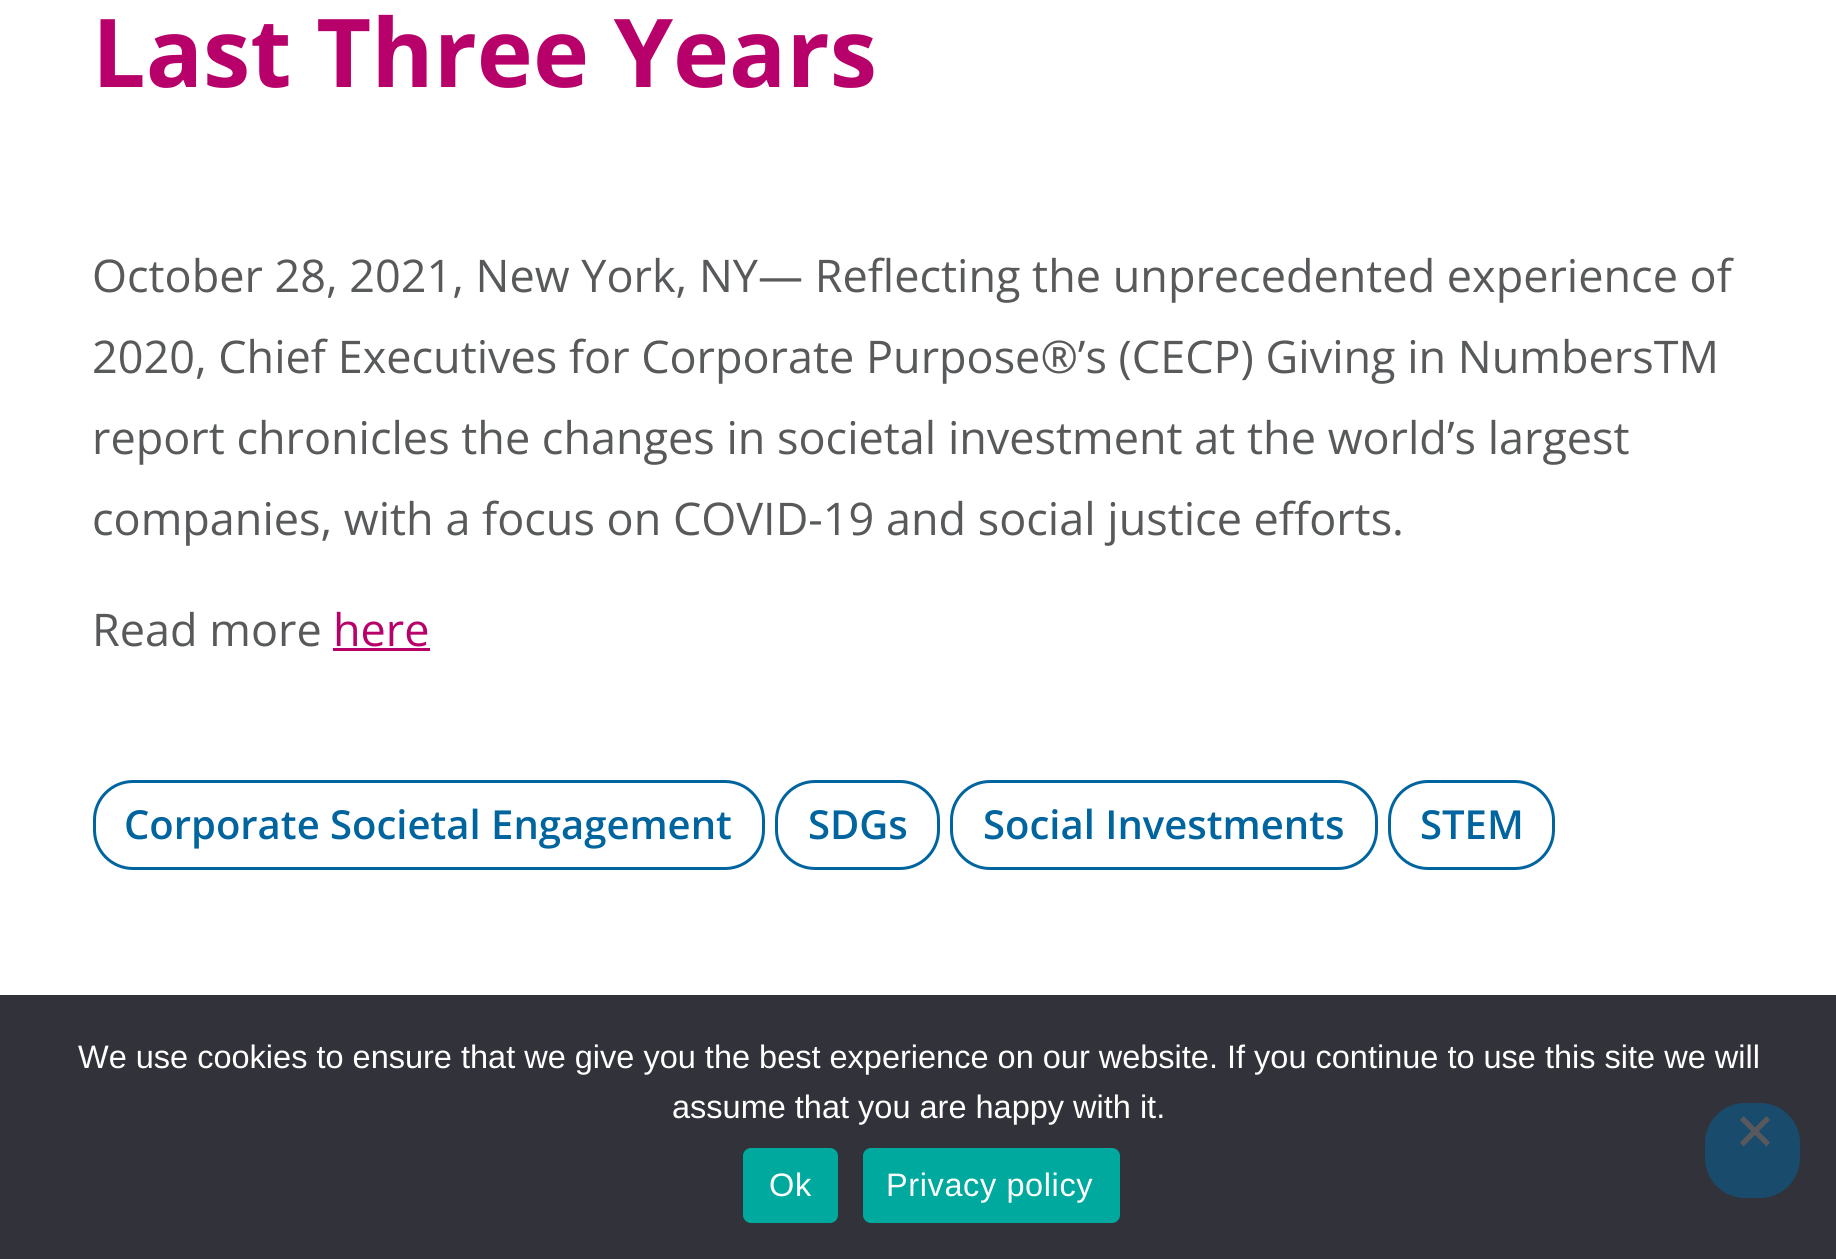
#include <cairo.h>
#include <math.h>
#include <stddef.h>

static cairo_t *ctx;

static void use_color(int r, int g, int b) {
    cairo_set_source_rgb(ctx, r / 255.0, g / 255.0, b / 255.0);
}

static void spaced_text(double x, double y, const char *s, double letter, double word) {
    cairo_move_to(ctx, x, y);
    while (*s) {
        char ch[5] = {0};
        int n = 0;
        do ch[n++] = *s++; while ((*s & 0xC0) == 0x80);
        cairo_show_text(ctx, ch);
        cairo_rel_move_to(ctx, letter + word * (*ch == ' '), 0);
    }
}

static void round_rect(double x, double y, double w, double h, double r) {
    cairo_new_sub_path(ctx);
    cairo_arc(ctx, x + w - r, y + h - r, r, 0, M_PI / 2);
    cairo_arc(ctx, x + r, y + h - r, r, M_PI / 2, M_PI);
    cairo_arc(ctx, x + r, y + r, r, M_PI, 1.5 * M_PI);
    cairo_arc(ctx, x + w - r, y + r, r, 1.5 * M_PI, 2 * M_PI);
    cairo_close_path(ctx);
}

int main(void) {
    cairo_surface_t *surface = cairo_image_surface_create(CAIRO_FORMAT_RGB24, 1836, 1259);
    ctx = cairo_create(surface);
    cairo_font_options_t *options = cairo_font_options_create();
    cairo_font_options_set_hint_metrics(options, CAIRO_HINT_METRICS_OFF);
    cairo_font_options_set_hint_style(options, CAIRO_HINT_STYLE_NONE);
    cairo_set_font_options(ctx, options);
    cairo_set_miter_limit(ctx, 4);
    use_color(255, 255, 255);
    cairo_paint(ctx);
    cairo_select_font_face(ctx, "Open Sans", CAIRO_FONT_SLANT_NORMAL, CAIRO_FONT_WEIGHT_BOLD);
    cairo_set_font_size(ctx, 95);
    use_color(184, 0, 107);
    cairo_move_to(ctx, 92, 87);
    cairo_show_text(ctx, "Last Three Years");
    cairo_select_font_face(ctx, "Open Sans", CAIRO_FONT_SLANT_NORMAL, CAIRO_FONT_WEIGHT_NORMAL);
    cairo_set_font_size(ctx, 45);
    use_color(87, 89, 91);
    cairo_move_to(ctx, 92, 292);
    cairo_show_text(ctx, "October 28, 2021, New York, NY— Reflecting the unprecedented experience of");
    cairo_move_to(ctx, 92, 373);
    cairo_show_text(ctx, "2020, Chief Executives for Corporate Purpose®’s (CECP) Giving in NumbersTM");
    cairo_move_to(ctx, 92, 454);
    cairo_show_text(ctx, "report chronicles the changes in societal investment at the world’s largest");
    cairo_move_to(ctx, 92, 535);
    cairo_show_text(ctx, "companies, with a focus on COVID-19 and social justice efforts.");
    cairo_move_to(ctx, 92, 646);
    cairo_show_text(ctx, "Read more");
    use_color(184, 0, 107);
    cairo_move_to(ctx, 333, 646);
    cairo_show_text(ctx, "here");
    cairo_rectangle(ctx, 333, 648, 97, 3);
    cairo_fill(ctx);
    round_rect(94.5, 781.5, 669, 87, 38.5);
    use_color(0, 100, 158);
    cairo_set_line_width(ctx, 3);
    cairo_stroke(ctx);
    cairo_select_font_face(ctx, "Open Sans SemiBold", CAIRO_FONT_SLANT_NORMAL, CAIRO_FONT_WEIGHT_NORMAL);
    cairo_set_font_size(ctx, 40);
    cairo_move_to(ctx, 124, 839);
    cairo_show_text(ctx, "Corporate Societal Engagement");
    round_rect(776.5, 781.5, 162, 87, 38.5);
    cairo_stroke(ctx);
    cairo_move_to(ctx, 808, 839);
    cairo_show_text(ctx, "SDGs");
    round_rect(951.5, 781.5, 425, 87, 38.5);
    cairo_stroke(ctx);
    cairo_move_to(ctx, 983, 839);
    cairo_show_text(ctx, "Social Investments");
    round_rect(1389.5, 781.5, 164, 87, 38.5);
    cairo_stroke(ctx);
    cairo_move_to(ctx, 1420, 839);
    cairo_show_text(ctx, "STEM");
    use_color(50, 50, 58);
    cairo_rectangle(ctx, 0, 995, 1836, 264);
    cairo_fill(ctx);
    cairo_select_font_face(ctx, "Liberation Sans", CAIRO_FONT_SLANT_NORMAL, CAIRO_FONT_WEIGHT_NORMAL);
    cairo_set_font_size(ctx, 32.5);
    use_color(255, 255, 255);
    cairo_move_to(ctx, 78, 1068);
    cairo_show_text(ctx, "We use cookies to ensure that we give you the best experience on our website. If you continue to use this site we will");
    cairo_move_to(ctx, 672, 1118);
    cairo_show_text(ctx, "assume that you are happy with it.");
    use_color(0, 169, 157);
    round_rect(743, 1148, 95, 75, 8);
    cairo_fill(ctx);
    use_color(255, 255, 255);
    spaced_text(769, 1196, "Ok", 0.6, 0);
    use_color(0, 169, 157);
    round_rect(863, 1148, 257, 75, 8);
    cairo_fill(ctx);
    use_color(255, 255, 255);
    spaced_text(886, 1196, "Privacy policy", 0.6, 0);
    use_color(25, 75, 108);
    round_rect(1705, 1103, 95, 95, 40);
    cairo_fill(ctx);
    use_color(89, 89, 93);
    cairo_new_path(ctx);
    cairo_move_to(ctx, 1766.5, 1116);
    cairo_line_to(ctx, 1770, 1120);
    cairo_line_to(ctx, 1743.5, 1146.5);
    cairo_line_to(ctx, 1740, 1142.5);
    cairo_close_path(ctx);
    cairo_fill(ctx);
    cairo_new_path(ctx);
    cairo_move_to(ctx, 1740, 1120);
    cairo_line_to(ctx, 1743.5, 1116);
    cairo_line_to(ctx, 1770, 1142.5);
    cairo_line_to(ctx, 1766.5, 1146.5);
    cairo_close_path(ctx);
    cairo_fill(ctx);
    cairo_surface_write_to_png(surface, "result.png");
    cairo_font_options_destroy(options);
    cairo_destroy(ctx);
    cairo_surface_destroy(surface);
    return 0;
}
